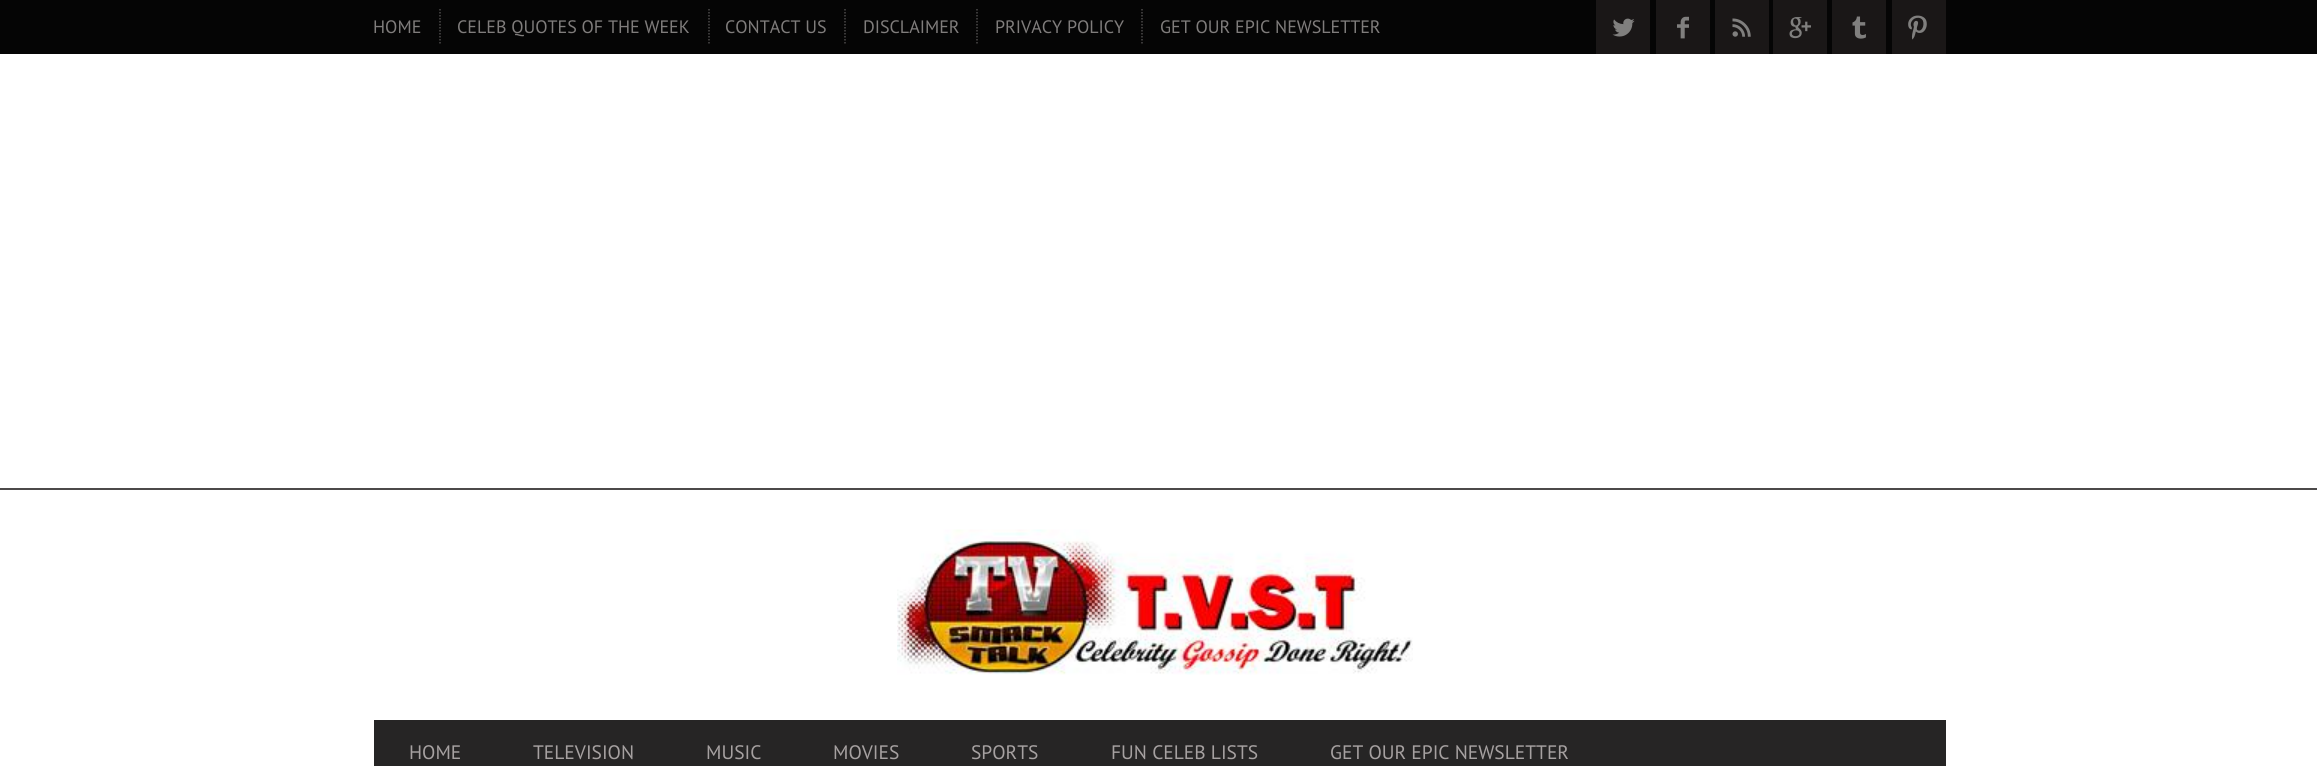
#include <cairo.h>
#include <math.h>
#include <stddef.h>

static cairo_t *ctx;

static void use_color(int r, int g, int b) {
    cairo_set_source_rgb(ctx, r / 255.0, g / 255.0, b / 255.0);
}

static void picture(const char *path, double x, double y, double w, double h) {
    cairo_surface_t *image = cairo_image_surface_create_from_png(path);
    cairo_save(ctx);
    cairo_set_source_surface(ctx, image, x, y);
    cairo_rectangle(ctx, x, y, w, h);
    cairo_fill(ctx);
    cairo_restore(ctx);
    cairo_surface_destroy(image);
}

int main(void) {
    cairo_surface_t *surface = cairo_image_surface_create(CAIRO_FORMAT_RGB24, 2317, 766);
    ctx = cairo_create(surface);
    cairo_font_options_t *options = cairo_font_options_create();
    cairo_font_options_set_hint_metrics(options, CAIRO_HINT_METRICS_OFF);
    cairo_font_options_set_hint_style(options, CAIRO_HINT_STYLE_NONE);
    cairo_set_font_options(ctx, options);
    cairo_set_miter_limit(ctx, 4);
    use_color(255, 255, 255);
    cairo_paint(ctx);
    use_color(5, 5, 5);
    cairo_rectangle(ctx, 0, 0, 2317, 54);
    cairo_fill(ctx);
    cairo_select_font_face(ctx, "PT Sans", CAIRO_FONT_SLANT_NORMAL, CAIRO_FONT_WEIGHT_NORMAL);
    cairo_set_font_size(ctx, 18);
    use_color(128, 125, 124);
    cairo_move_to(ctx, 373, 33);
    cairo_show_text(ctx, "HOME");
    cairo_new_path(ctx);
    cairo_move_to(ctx, 440, 9);
    cairo_line_to(ctx, 440, 45);
    use_color(76, 74, 74);
    cairo_set_line_width(ctx, 1.5);
    cairo_set_dash(ctx, (double[]){1.5, 1.5}, 2, 0);
    cairo_stroke(ctx);
    use_color(128, 125, 124);
    cairo_move_to(ctx, 457, 33);
    cairo_show_text(ctx, "CELEB QUOTES OF THE WEEK");
    cairo_new_path(ctx);
    cairo_move_to(ctx, 709, 9);
    cairo_line_to(ctx, 709, 45);
    use_color(76, 74, 74);
    cairo_stroke(ctx);
    use_color(128, 125, 124);
    cairo_move_to(ctx, 725, 33);
    cairo_show_text(ctx, "CONTACT US");
    cairo_new_path(ctx);
    cairo_move_to(ctx, 845, 9);
    cairo_line_to(ctx, 845, 45);
    use_color(76, 74, 74);
    cairo_stroke(ctx);
    use_color(128, 125, 124);
    cairo_move_to(ctx, 863, 33);
    cairo_show_text(ctx, "DISCLAIMER");
    cairo_new_path(ctx);
    cairo_move_to(ctx, 977, 9);
    cairo_line_to(ctx, 977, 45);
    use_color(76, 74, 74);
    cairo_stroke(ctx);
    use_color(128, 125, 124);
    cairo_move_to(ctx, 995, 33);
    cairo_show_text(ctx, "PRIVACY POLICY");
    cairo_new_path(ctx);
    cairo_move_to(ctx, 1142, 9);
    cairo_line_to(ctx, 1142, 45);
    use_color(76, 74, 74);
    cairo_stroke(ctx);
    use_color(128, 125, 124);
    cairo_move_to(ctx, 1160, 33);
    cairo_show_text(ctx, "GET OUR EPIC NEWSLETTER");
    use_color(26, 23, 23);
    cairo_rectangle(ctx, 1596, 0, 54, 54);
    cairo_fill(ctx);
    picture("img1.png", 1612, 18, 23, 19);
    cairo_rectangle(ctx, 1656, 0, 54, 54);
    cairo_fill(ctx);
    picture("img2.png", 1677, 16, 12, 23);
    cairo_rectangle(ctx, 1715, 0, 54, 54);
    cairo_fill(ctx);
    picture("img3.png", 1732, 18, 19, 19);
    cairo_rectangle(ctx, 1773, 0, 54, 54);
    cairo_fill(ctx);
    picture("img4.png", 1789, 17, 22, 22);
    cairo_rectangle(ctx, 1832, 0, 54, 54);
    cairo_fill(ctx);
    picture("img5.png", 1852, 16, 14, 23);
    cairo_rectangle(ctx, 1892, 0, 54, 54);
    cairo_fill(ctx);
    picture("img6.png", 1908, 15, 19, 25);
    use_color(76, 74, 74);
    cairo_rectangle(ctx, 0, 488, 2317, 2);
    cairo_fill(ctx);
    picture("img7.png", 897, 529, 516, 146);
    use_color(38, 37, 37);
    cairo_rectangle(ctx, 374, 720, 1572, 46);
    cairo_fill(ctx);
    cairo_set_font_size(ctx, 19.5);
    use_color(166, 161, 161);
    cairo_move_to(ctx, 409, 759);
    cairo_show_text(ctx, "HOME");
    cairo_move_to(ctx, 533, 759);
    cairo_show_text(ctx, "TELEVISION");
    cairo_move_to(ctx, 706, 759);
    cairo_show_text(ctx, "MUSIC");
    cairo_move_to(ctx, 833, 759);
    cairo_show_text(ctx, "MOVIES");
    cairo_move_to(ctx, 971, 759);
    cairo_show_text(ctx, "SPORTS");
    cairo_move_to(ctx, 1111, 759);
    cairo_show_text(ctx, "FUN CELEB LISTS");
    cairo_move_to(ctx, 1330, 759);
    cairo_show_text(ctx, "GET OUR EPIC NEWSLETTER");
    cairo_surface_write_to_png(surface, "result.png");
    cairo_font_options_destroy(options);
    cairo_destroy(ctx);
    cairo_surface_destroy(surface);
    return 0;
}
